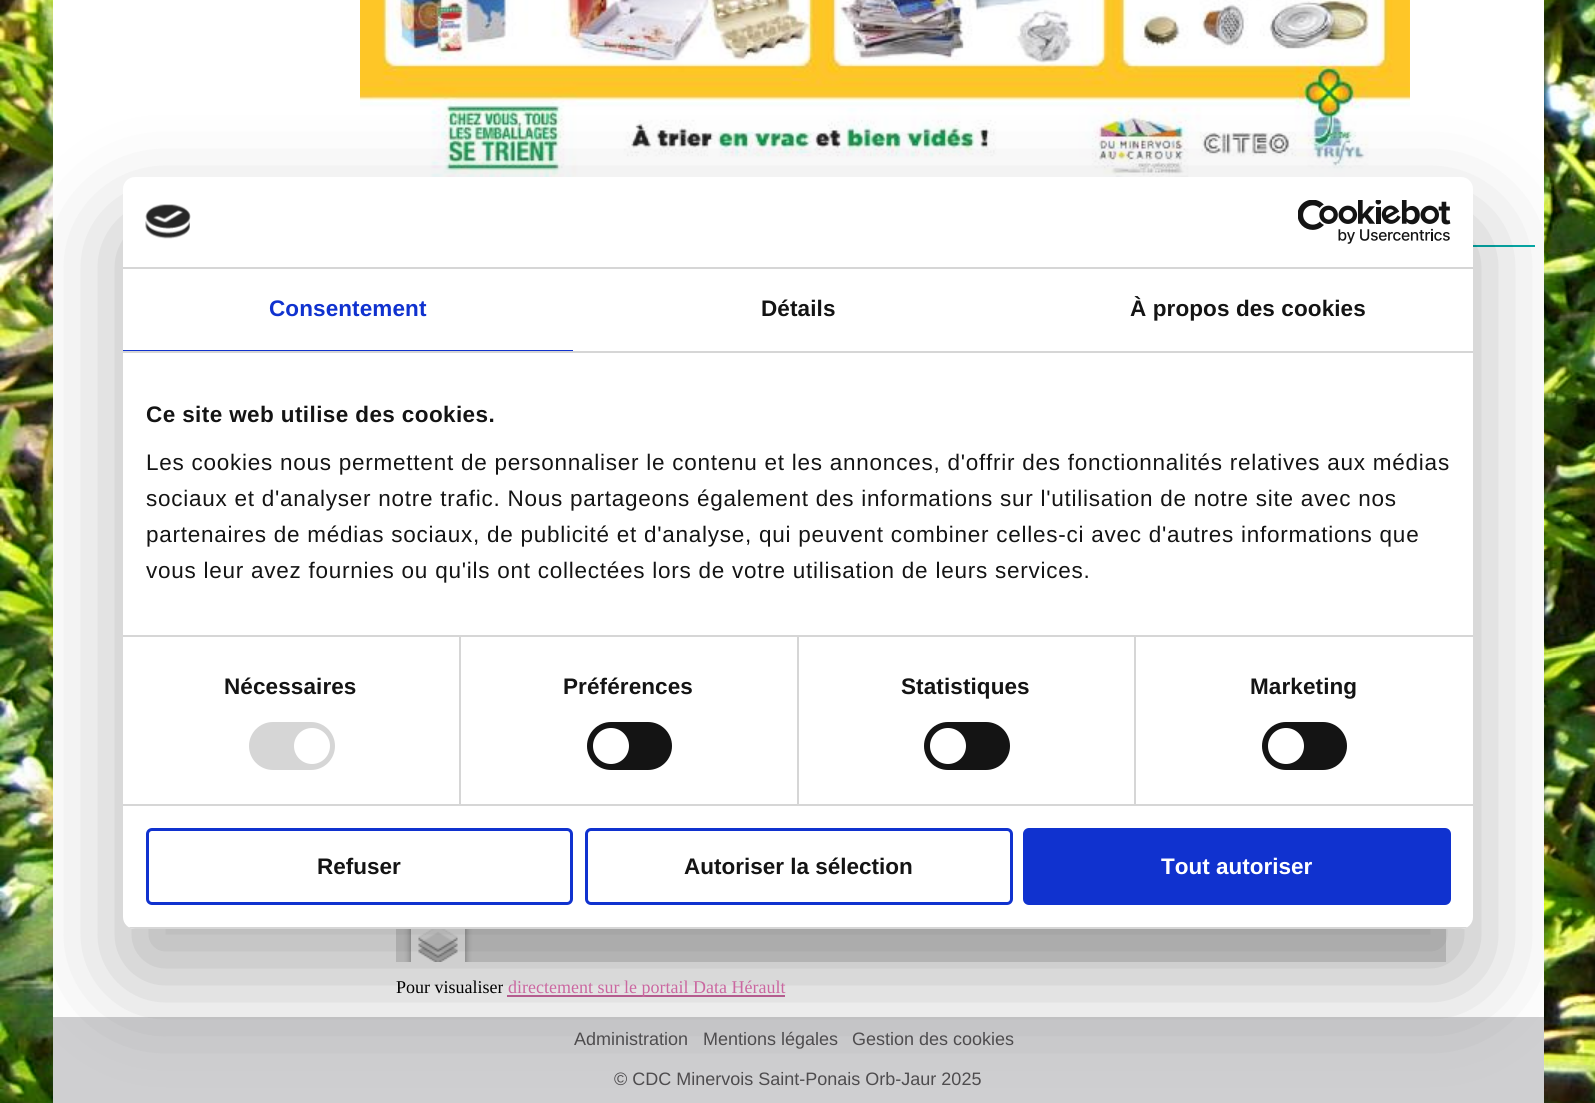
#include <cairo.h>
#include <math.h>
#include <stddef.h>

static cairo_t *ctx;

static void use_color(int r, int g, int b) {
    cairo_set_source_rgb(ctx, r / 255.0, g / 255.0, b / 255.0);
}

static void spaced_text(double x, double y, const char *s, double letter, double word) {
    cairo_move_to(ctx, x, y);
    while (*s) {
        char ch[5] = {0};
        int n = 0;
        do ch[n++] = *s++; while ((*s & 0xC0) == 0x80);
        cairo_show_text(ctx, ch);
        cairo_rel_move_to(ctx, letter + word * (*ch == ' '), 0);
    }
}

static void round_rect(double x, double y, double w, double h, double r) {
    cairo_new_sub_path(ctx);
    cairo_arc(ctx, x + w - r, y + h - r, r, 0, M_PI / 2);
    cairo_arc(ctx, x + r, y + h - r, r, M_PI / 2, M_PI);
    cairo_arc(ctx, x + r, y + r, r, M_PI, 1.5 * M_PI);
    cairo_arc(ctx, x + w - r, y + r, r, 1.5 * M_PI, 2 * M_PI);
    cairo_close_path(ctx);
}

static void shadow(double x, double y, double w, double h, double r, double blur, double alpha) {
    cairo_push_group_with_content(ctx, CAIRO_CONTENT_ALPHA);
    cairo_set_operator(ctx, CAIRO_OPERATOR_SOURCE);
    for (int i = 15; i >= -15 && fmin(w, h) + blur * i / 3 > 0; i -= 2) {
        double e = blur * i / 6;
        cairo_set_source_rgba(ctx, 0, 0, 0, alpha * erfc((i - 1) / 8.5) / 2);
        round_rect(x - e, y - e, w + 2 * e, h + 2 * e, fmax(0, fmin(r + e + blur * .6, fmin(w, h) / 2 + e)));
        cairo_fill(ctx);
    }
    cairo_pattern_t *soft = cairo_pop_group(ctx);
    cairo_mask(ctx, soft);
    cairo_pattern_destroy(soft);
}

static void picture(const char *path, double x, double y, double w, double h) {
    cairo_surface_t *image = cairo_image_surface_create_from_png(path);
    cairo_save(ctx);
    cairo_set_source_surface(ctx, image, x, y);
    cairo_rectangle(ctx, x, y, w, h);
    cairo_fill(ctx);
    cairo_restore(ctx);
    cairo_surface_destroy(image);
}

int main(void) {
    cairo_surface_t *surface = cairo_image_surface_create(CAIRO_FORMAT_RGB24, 1595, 1103);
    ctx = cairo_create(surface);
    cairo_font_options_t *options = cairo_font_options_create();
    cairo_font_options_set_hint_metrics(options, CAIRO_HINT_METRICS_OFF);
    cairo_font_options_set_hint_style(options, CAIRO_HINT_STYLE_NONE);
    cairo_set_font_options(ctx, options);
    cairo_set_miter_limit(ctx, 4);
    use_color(255, 255, 255);
    cairo_paint(ctx);
    picture("img1.png", 0, 0, 1595, 1103);
    use_color(255, 255, 255);
    cairo_rectangle(ctx, 53, 0, 1491, 1017);
    cairo_fill(ctx);
    picture("img4.png", 360, 0, 1050, 177);
    use_color(5, 170, 168);
    cairo_rectangle(ctx, 1473, 245, 62, 2);
    cairo_fill(ctx);
    picture("img5.png", 396, 929, 1050, 33);
    use_color(202, 103, 160);
    cairo_rectangle(ctx, 507, 995, 278, 2);
    cairo_fill(ctx);
    use_color(207, 207, 209);
    cairo_rectangle(ctx, 53, 1017, 1491, 86);
    cairo_fill(ctx);
    use_color(0, 0, 0);
    shadow(123, 225, 1350, 752, 12, 51, 0.3);
    use_color(255, 255, 255);
    round_rect(123, 177, 1350, 752, 12);
    cairo_fill(ctx);
    use_color(214, 214, 214);
    cairo_rectangle(ctx, 123, 267, 1350, 2);
    cairo_fill(ctx);
    picture("img2.png", 145, 204, 46, 35);
    picture("img3.png", 1298, 200, 153, 44);
    cairo_rectangle(ctx, 123, 351, 1350, 2);
    cairo_fill(ctx);
    use_color(16, 50, 207);
    cairo_rectangle(ctx, 123, 350, 450, 1);
    cairo_fill(ctx);
    cairo_select_font_face(ctx, "Liberation Sans", CAIRO_FONT_SLANT_NORMAL, CAIRO_FONT_WEIGHT_BOLD);
    cairo_set_font_size(ctx, 22.5);
    spaced_text(269, 316, "Consentement", 0.1, 0);
    use_color(20, 20, 20);
    spaced_text(761, 316, "Détails", 0.1, 0);
    spaced_text(1130, 316, "À propos des cookies", 0.1, 0);
    use_color(214, 214, 214);
    cairo_rectangle(ctx, 459, 636, 2, 168);
    cairo_fill(ctx);
    cairo_rectangle(ctx, 797, 636, 2, 168);
    cairo_fill(ctx);
    cairo_rectangle(ctx, 1134, 636, 2, 168);
    cairo_fill(ctx);
    cairo_rectangle(ctx, 123, 635, 1350, 2);
    cairo_fill(ctx);
    use_color(20, 20, 20);
    spaced_text(146, 422, "Ce site web utilise des cookies.", 0.4, 0);
    cairo_select_font_face(ctx, "Liberation Sans", CAIRO_FONT_SLANT_NORMAL, CAIRO_FONT_WEIGHT_NORMAL);
    spaced_text(146, 470, "Les cookies nous permettent de personnaliser le contenu et les annonces, d'offrir des fonctionnalités relatives aux médias", 0.75, 0);
    spaced_text(146, 506, "sociaux et d'analyser notre trafic. Nous partageons également des informations sur l'utilisation de notre site avec nos", 0.75, 0);
    spaced_text(146, 542, "partenaires de médias sociaux, de publicité et d'analyse, qui peuvent combiner celles-ci avec d'autres informations que", 0.75, 0);
    spaced_text(146, 578, "vous leur avez fournies ou qu'ils ont collectées lors de votre utilisation de leurs services.", 0.75, 0);
    use_color(214, 214, 214);
    cairo_rectangle(ctx, 123, 804, 1350, 2);
    cairo_fill(ctx);
    cairo_select_font_face(ctx, "Liberation Sans", CAIRO_FONT_SLANT_NORMAL, CAIRO_FONT_WEIGHT_BOLD);
    use_color(20, 20, 20);
    spaced_text(224, 694, "Nécessaires", 0.1, 0);
    use_color(214, 214, 214);
    round_rect(249, 722, 86, 48, 24);
    cairo_fill(ctx);
    use_color(255, 255, 255);
    cairo_arc(ctx, 312, 746, 18, 0, 2 * M_PI);
    cairo_fill(ctx);
    use_color(20, 20, 20);
    spaced_text(563, 694, "Préférences", 0.1, 0);
    round_rect(587, 722, 85, 48, 24);
    cairo_fill(ctx);
    use_color(255, 255, 255);
    cairo_arc(ctx, 611, 746, 18, 0, 2 * M_PI);
    cairo_fill(ctx);
    use_color(20, 20, 20);
    spaced_text(901, 694, "Statistiques", 0.1, 0);
    round_rect(924, 722, 86, 48, 24);
    cairo_fill(ctx);
    use_color(255, 255, 255);
    cairo_arc(ctx, 948, 746, 18, 0, 2 * M_PI);
    cairo_fill(ctx);
    use_color(20, 20, 20);
    spaced_text(1250, 694, "Marketing", 0.1, 0);
    round_rect(1262, 722, 85, 48, 24);
    cairo_fill(ctx);
    use_color(255, 255, 255);
    cairo_arc(ctx, 1286, 746, 18, 0, 2 * M_PI);
    cairo_fill(ctx);
    cairo_save(ctx);
    round_rect(123, 177, 1350, 752, 12);
    cairo_clip(ctx);
    use_color(214, 214, 214);
    cairo_rectangle(ctx, 123, 927, 1350, 2);
    cairo_fill(ctx);
    cairo_restore(ctx);
    round_rect(147.5, 829.5, 424, 74, 4.5);
    use_color(16, 50, 207);
    cairo_set_line_width(ctx, 3);
    cairo_stroke(ctx);
    use_color(20, 20, 20);
    cairo_move_to(ctx, 317, 874);
    cairo_show_text(ctx, "Refuser");
    round_rect(586.5, 829.5, 425, 74, 4.5);
    use_color(16, 50, 207);
    cairo_stroke(ctx);
    use_color(20, 20, 20);
    cairo_move_to(ctx, 684, 874);
    cairo_show_text(ctx, "Autoriser la sélection");
    use_color(16, 50, 207);
    round_rect(1024.5, 829.5, 425, 74, 4.5);
    cairo_fill_preserve(ctx);
    cairo_stroke(ctx);
    use_color(255, 255, 255);
    cairo_move_to(ctx, 1161, 874);
    cairo_show_text(ctx, "Tout autoriser");
    cairo_select_font_face(ctx, "Liberation Serif", CAIRO_FONT_SLANT_NORMAL, CAIRO_FONT_WEIGHT_NORMAL);
    cairo_set_font_size(ctx, 18);
    use_color(0, 0, 0);
    cairo_move_to(ctx, 396, 993);
    cairo_show_text(ctx, "Pour visualiser");
    use_color(202, 103, 160);
    cairo_move_to(ctx, 508, 993);
    cairo_show_text(ctx, "directement sur le portail Data Hérault");
    cairo_select_font_face(ctx, "Liberation Sans", CAIRO_FONT_SLANT_NORMAL, CAIRO_FONT_WEIGHT_NORMAL);
    use_color(78, 76, 78);
    cairo_move_to(ctx, 574, 1045);
    cairo_show_text(ctx, "Administration");
    cairo_move_to(ctx, 703, 1045);
    cairo_show_text(ctx, "Mentions légales");
    cairo_move_to(ctx, 852, 1045);
    cairo_show_text(ctx, "Gestion des cookies");
    cairo_move_to(ctx, 614, 1085);
    cairo_show_text(ctx, "© CDC Minervois Saint-Ponais Orb-Jaur 2025");
    cairo_surface_write_to_png(surface, "result.png");
    cairo_font_options_destroy(options);
    cairo_destroy(ctx);
    cairo_surface_destroy(surface);
    return 0;
}
